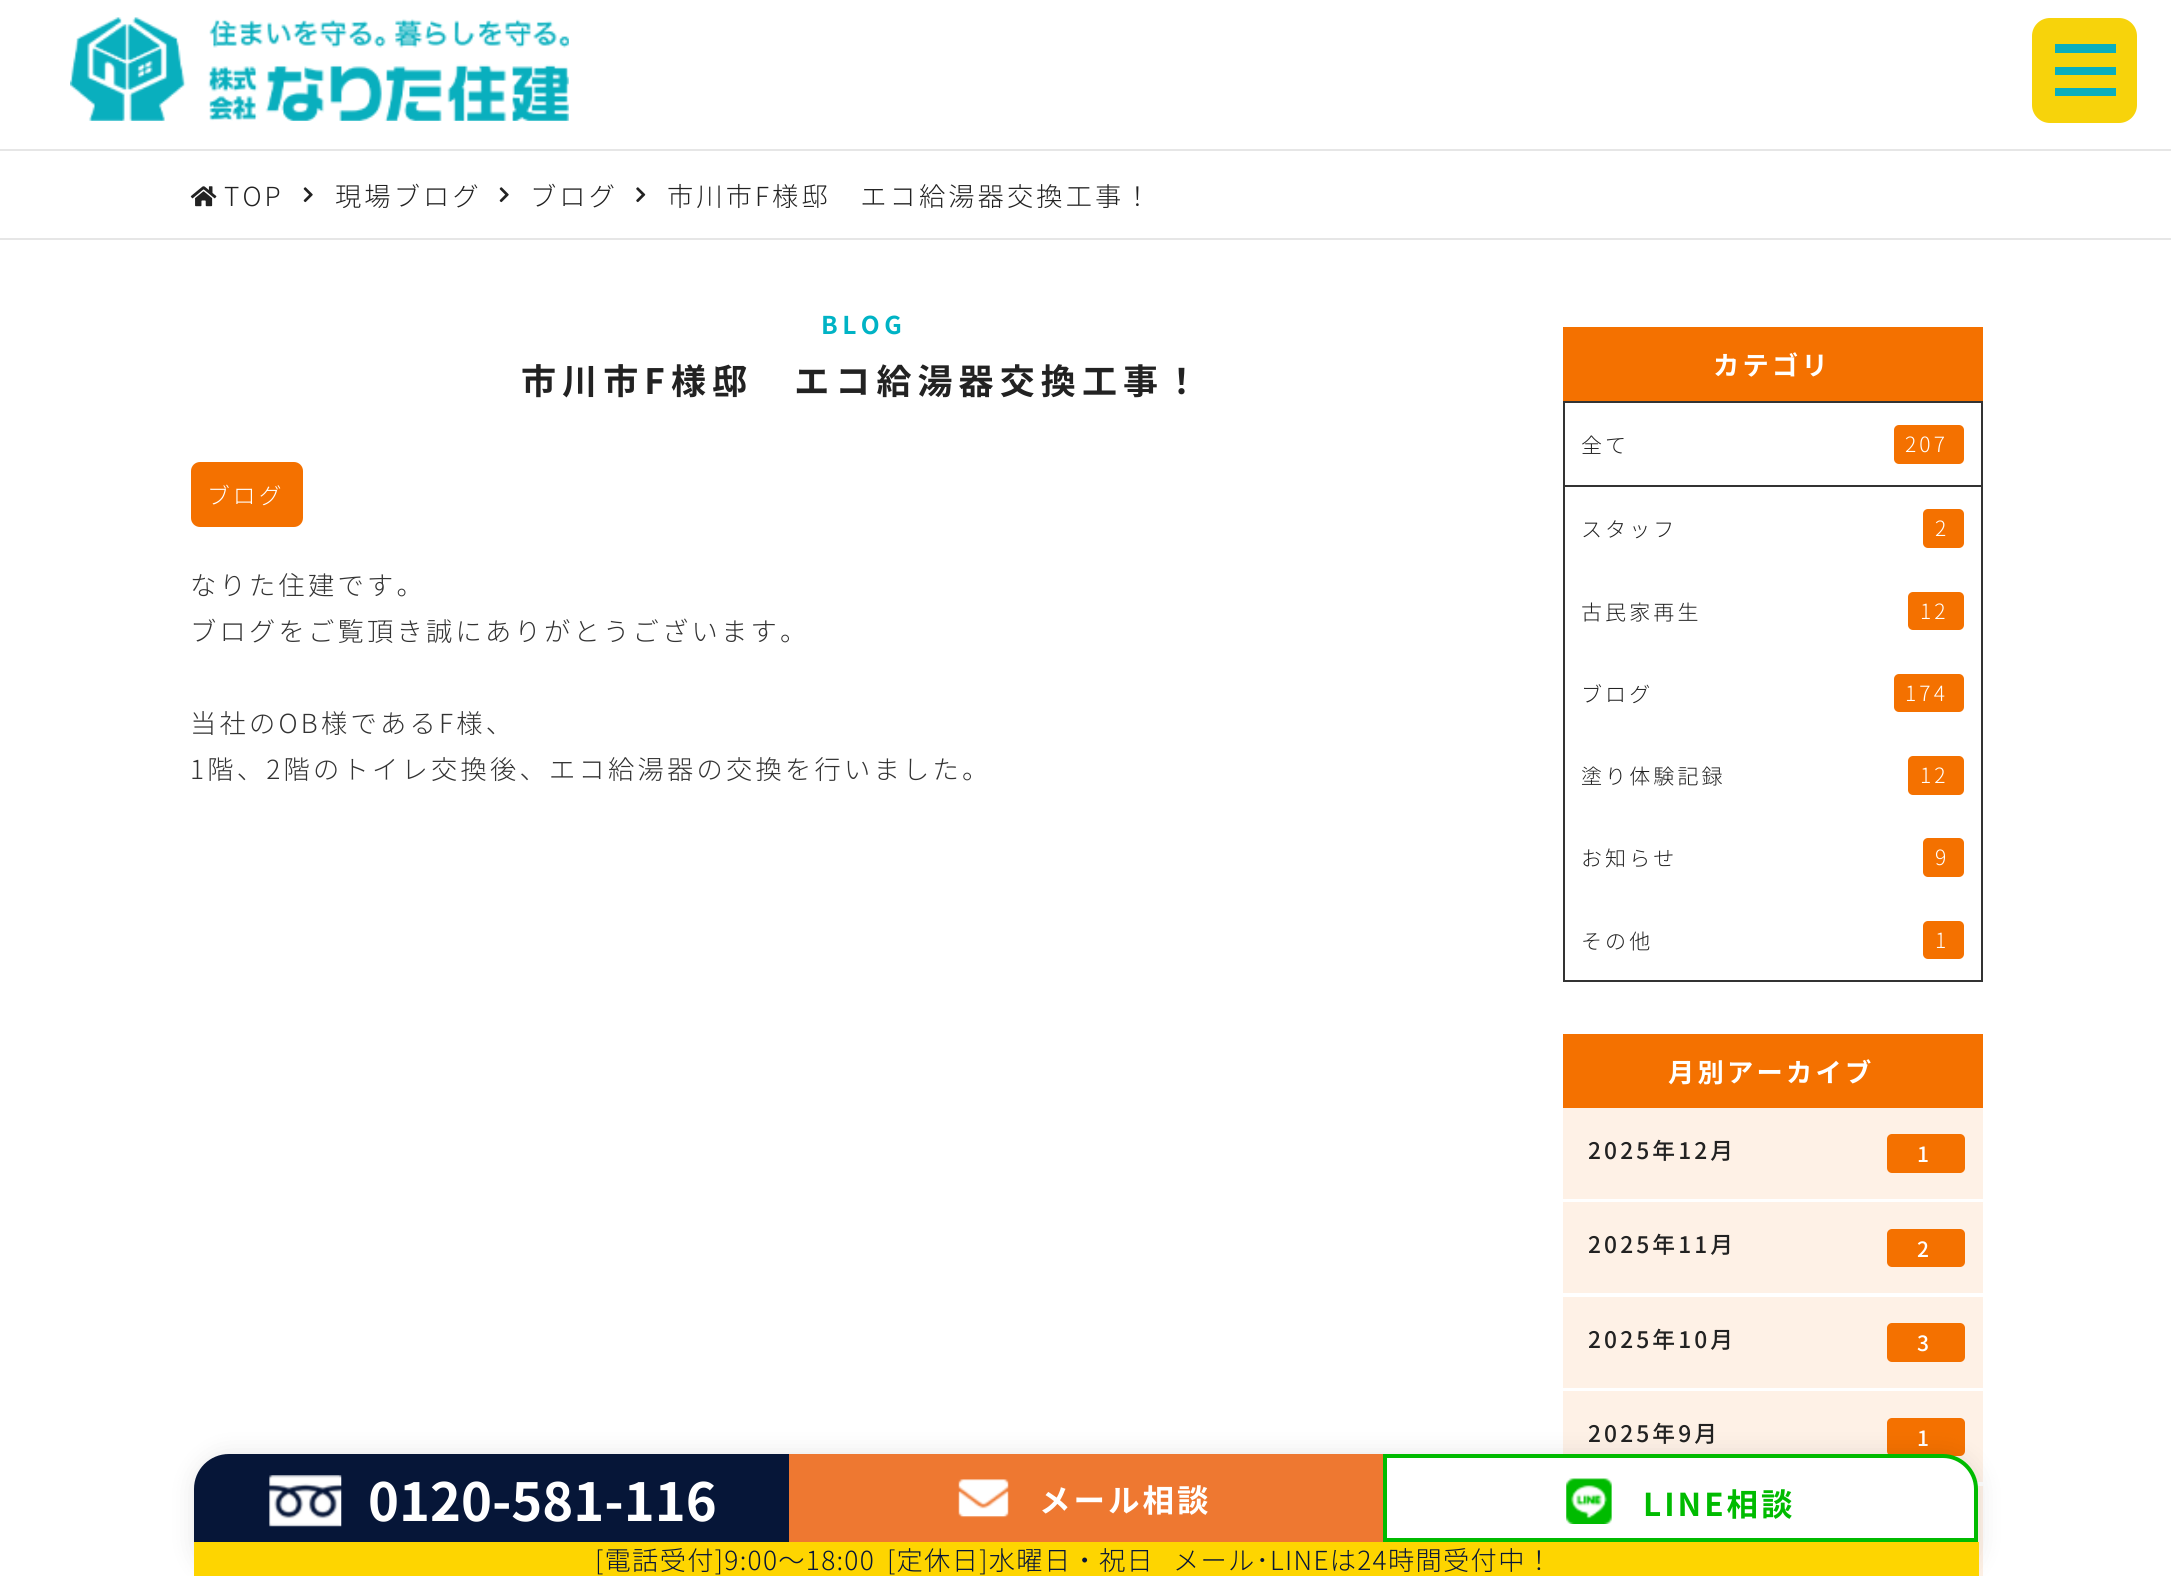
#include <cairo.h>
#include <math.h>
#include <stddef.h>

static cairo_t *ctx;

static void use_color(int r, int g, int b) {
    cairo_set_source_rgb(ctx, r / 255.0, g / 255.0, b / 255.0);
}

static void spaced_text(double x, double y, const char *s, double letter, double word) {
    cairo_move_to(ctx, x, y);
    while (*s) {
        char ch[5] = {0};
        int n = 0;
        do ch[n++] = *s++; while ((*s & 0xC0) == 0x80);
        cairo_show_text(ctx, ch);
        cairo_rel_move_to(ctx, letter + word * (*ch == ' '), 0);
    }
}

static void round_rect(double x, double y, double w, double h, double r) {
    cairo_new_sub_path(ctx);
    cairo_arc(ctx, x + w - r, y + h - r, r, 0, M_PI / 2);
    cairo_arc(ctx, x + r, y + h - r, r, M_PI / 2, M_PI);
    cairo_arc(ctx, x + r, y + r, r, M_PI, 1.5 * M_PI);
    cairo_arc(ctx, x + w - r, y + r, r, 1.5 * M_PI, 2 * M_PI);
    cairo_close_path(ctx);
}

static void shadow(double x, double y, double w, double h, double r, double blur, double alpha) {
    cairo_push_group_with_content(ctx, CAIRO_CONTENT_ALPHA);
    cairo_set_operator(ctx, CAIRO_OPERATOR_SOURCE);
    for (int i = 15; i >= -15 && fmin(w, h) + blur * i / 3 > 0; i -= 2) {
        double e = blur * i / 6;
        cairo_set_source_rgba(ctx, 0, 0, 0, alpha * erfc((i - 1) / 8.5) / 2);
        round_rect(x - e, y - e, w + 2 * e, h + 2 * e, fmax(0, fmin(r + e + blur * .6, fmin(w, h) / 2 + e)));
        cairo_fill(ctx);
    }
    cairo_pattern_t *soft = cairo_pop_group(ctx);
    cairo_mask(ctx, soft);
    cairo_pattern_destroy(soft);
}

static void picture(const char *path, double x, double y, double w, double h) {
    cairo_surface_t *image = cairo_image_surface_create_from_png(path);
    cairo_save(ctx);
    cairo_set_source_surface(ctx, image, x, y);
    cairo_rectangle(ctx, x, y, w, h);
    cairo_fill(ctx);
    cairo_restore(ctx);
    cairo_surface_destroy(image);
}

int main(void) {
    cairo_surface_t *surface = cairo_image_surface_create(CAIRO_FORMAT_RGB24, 2171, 1576);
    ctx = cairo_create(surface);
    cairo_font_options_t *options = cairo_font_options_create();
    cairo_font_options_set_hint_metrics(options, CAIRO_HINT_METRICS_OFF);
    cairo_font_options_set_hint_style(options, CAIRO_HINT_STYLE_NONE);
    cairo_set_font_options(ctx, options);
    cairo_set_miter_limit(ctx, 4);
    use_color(255, 255, 255);
    cairo_paint(ctx);
    picture("img1.png", 70, 17, 499, 104);
    use_color(247, 211, 11);
    round_rect(2032, 18, 105, 105, 18);
    cairo_fill(ctx);
    use_color(9, 175, 190);
    cairo_rectangle(ctx, 2055, 44, 61, 9);
    cairo_fill(ctx);
    cairo_rectangle(ctx, 2055, 67, 61, 8);
    cairo_fill(ctx);
    cairo_rectangle(ctx, 2055, 88, 61, 8);
    cairo_fill(ctx);
    use_color(230, 230, 230);
    cairo_rectangle(ctx, 0, 149, 2171, 2);
    cairo_fill(ctx);
    cairo_rectangle(ctx, 0, 238, 2171, 2);
    cairo_fill(ctx);
    picture("img2.png", 190, 186, 27, 21);
    cairo_select_font_face(ctx, "Noto Sans JP Light", CAIRO_FONT_SLANT_NORMAL, CAIRO_FONT_WEIGHT_NORMAL);
    cairo_set_font_size(ctx, 26.25);
    use_color(34, 34, 34);
    spaced_text(224, 206, "TOP", 3.1, 0);
    picture("img3.png", 303, 187, 10, 16);
    spaced_text(335, 206, "現場ブログ", 3.1, 0);
    picture("img3.png", 499, 187, 10, 16);
    spaced_text(530, 206, "ブログ", 3.1, 0);
    picture("img4.png", 636, 187, 10, 16);
    spaced_text(667, 206, "市川市F様邸　エコ給湯器交換工事！", 3.1, 0);
    cairo_select_font_face(ctx, "Noto Sans JP", CAIRO_FONT_SLANT_NORMAL, CAIRO_FONT_WEIGHT_BOLD);
    cairo_set_font_size(ctx, 24.5);
    use_color(0, 179, 197);
    spaced_text(821, 334, "BLOG", 4.5, 0);
    cairo_set_font_size(ctx, 35);
    use_color(34, 34, 34);
    spaced_text(521, 394, "市川市F様邸　エコ給湯器交換工事！", 6.1, 0);
    use_color(244, 113, 0);
    round_rect(191, 462, 112, 65, 9);
    cairo_fill(ctx);
    cairo_select_font_face(ctx, "Noto Sans JP Light", CAIRO_FONT_SLANT_NORMAL, CAIRO_FONT_WEIGHT_NORMAL);
    cairo_set_font_size(ctx, 22.75);
    use_color(255, 255, 255);
    spaced_text(207, 504, "ブログ", 3.1, 0);
    cairo_set_font_size(ctx, 26.25);
    use_color(51, 51, 51);
    spaced_text(190, 595, "なりた住建です。", 3.25, 0);
    spaced_text(190, 641, "ブログをご覧頂き誠にありがとうございます。", 3.25, 0);
    spaced_text(190, 733, "当社のOB様であるF様、", 3.25, 0);
    spaced_text(190, 779, "1階、2階のトイレ交換後、エコ給湯器の交換を行いました。", 3.25, 0);
    use_color(244, 113, 0);
    cairo_rectangle(ctx, 1563, 327, 420, 74);
    cairo_fill(ctx);
    cairo_select_font_face(ctx, "Noto Sans JP", CAIRO_FONT_SLANT_NORMAL, CAIRO_FONT_WEIGHT_BOLD);
    use_color(255, 255, 255);
    spaced_text(1713, 375, "カテゴリ", 3.25, 0);
    cairo_rectangle(ctx, 1564, 402, 418, 579);
    use_color(51, 51, 51);
    cairo_stroke(ctx);
    cairo_rectangle(ctx, 1565, 485, 416, 2);
    cairo_fill(ctx);
    cairo_select_font_face(ctx, "Noto Sans JP Light", CAIRO_FONT_SLANT_NORMAL, CAIRO_FONT_WEIGHT_NORMAL);
    cairo_set_font_size(ctx, 21);
    use_color(34, 34, 34);
    spaced_text(1581, 453, "全て", 3.1, 0);
    use_color(244, 113, 0);
    round_rect(1894, 425, 70, 39, 5);
    cairo_fill(ctx);
    use_color(255, 255, 255);
    spaced_text(1905, 452, "207", 3.1, 0);
    use_color(34, 34, 34);
    spaced_text(1581, 537, "スタッフ", 3.1, 0);
    use_color(244, 113, 0);
    round_rect(1923, 509, 41, 39, 5);
    cairo_fill(ctx);
    use_color(255, 255, 255);
    spaced_text(1935, 536, "2", 3.1, 0);
    use_color(34, 34, 34);
    spaced_text(1581, 620, "古民家再生", 3.1, 0);
    use_color(244, 113, 0);
    round_rect(1908, 592, 56, 38, 5);
    cairo_fill(ctx);
    use_color(255, 255, 255);
    spaced_text(1920, 619, "12", 3.1, 0);
    use_color(34, 34, 34);
    spaced_text(1581, 702, "ブログ", 3.1, 0);
    use_color(244, 113, 0);
    round_rect(1894, 674, 70, 38, 5);
    cairo_fill(ctx);
    use_color(255, 255, 255);
    spaced_text(1905, 701, "174", 3.1, 0);
    use_color(34, 34, 34);
    spaced_text(1581, 784, "塗り体験記録", 3.1, 0);
    use_color(244, 113, 0);
    round_rect(1908, 756, 56, 39, 5);
    cairo_fill(ctx);
    use_color(255, 255, 255);
    spaced_text(1920, 783, "12", 3.1, 0);
    use_color(34, 34, 34);
    spaced_text(1581, 866, "お知らせ", 3.1, 0);
    use_color(244, 113, 0);
    round_rect(1923, 838, 41, 39, 5);
    cairo_fill(ctx);
    use_color(255, 255, 255);
    spaced_text(1935, 865, "9", 3.1, 0);
    use_color(34, 34, 34);
    spaced_text(1581, 949, "その他", 3.1, 0);
    use_color(244, 113, 0);
    round_rect(1923, 921, 41, 38, 5);
    cairo_fill(ctx);
    use_color(255, 255, 255);
    spaced_text(1935, 948, "1", 3.1, 0);
    use_color(244, 113, 0);
    cairo_rectangle(ctx, 1563, 1034, 420, 74);
    cairo_fill(ctx);
    cairo_select_font_face(ctx, "Noto Sans JP", CAIRO_FONT_SLANT_NORMAL, CAIRO_FONT_WEIGHT_BOLD);
    cairo_set_font_size(ctx, 26.25);
    use_color(255, 255, 255);
    spaced_text(1668, 1082, "月別アーカイブ", 3.25, 0);
    use_color(254, 241, 230);
    cairo_rectangle(ctx, 1563, 1108, 420, 91);
    cairo_fill(ctx);
    cairo_select_font_face(ctx, "Noto Sans JP Medium", CAIRO_FONT_SLANT_NORMAL, CAIRO_FONT_WEIGHT_NORMAL);
    cairo_set_font_size(ctx, 22.75);
    use_color(34, 34, 34);
    spaced_text(1588, 1159, "2025年12月", 3.1, 0);
    use_color(244, 113, 0);
    round_rect(1887, 1134, 78, 39, 5);
    cairo_fill(ctx);
    cairo_set_font_size(ctx, 21);
    use_color(255, 255, 255);
    spaced_text(1917, 1162, "1", 3.1, 0);
    use_color(254, 241, 230);
    cairo_rectangle(ctx, 1563, 1202, 420, 91);
    cairo_fill(ctx);
    cairo_set_font_size(ctx, 22.75);
    use_color(34, 34, 34);
    spaced_text(1588, 1253, "2025年11月", 3.1, 0);
    use_color(244, 113, 0);
    round_rect(1887, 1229, 78, 38, 5);
    cairo_fill(ctx);
    cairo_set_font_size(ctx, 21);
    use_color(255, 255, 255);
    spaced_text(1917, 1257, "2", 3.1, 0);
    use_color(254, 241, 230);
    cairo_rectangle(ctx, 1563, 1297, 420, 91);
    cairo_fill(ctx);
    cairo_set_font_size(ctx, 22.75);
    use_color(34, 34, 34);
    spaced_text(1588, 1348, "2025年10月", 3.1, 0);
    use_color(244, 113, 0);
    round_rect(1887, 1323, 78, 39, 5);
    cairo_fill(ctx);
    cairo_set_font_size(ctx, 21);
    use_color(255, 255, 255);
    spaced_text(1917, 1351, "3", 3.1, 0);
    use_color(254, 241, 230);
    cairo_rectangle(ctx, 1563, 1391, 420, 91);
    cairo_fill(ctx);
    cairo_set_font_size(ctx, 22.75);
    use_color(34, 34, 34);
    spaced_text(1588, 1442, "2025年9月", 3.1, 0);
    use_color(244, 113, 0);
    round_rect(1887, 1418, 78, 38, 5);
    cairo_fill(ctx);
    cairo_set_font_size(ctx, 21);
    use_color(255, 255, 255);
    spaced_text(1917, 1446, "1", 3.1, 0);
    use_color(254, 241, 230);
    cairo_rectangle(ctx, 1977, 1486, 6, 90);
    cairo_fill(ctx);
    use_color(0, 0, 0);
    shadow(194, 1454, 1785, 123, 35, 12, 0.1);
    use_color(6, 22, 56);
    cairo_new_path(ctx);
    cairo_move_to(ctx, 229, 1454);
    cairo_line_to(ctx, 789, 1454);
    cairo_line_to(ctx, 789, 1542);
    cairo_line_to(ctx, 194, 1542);
    cairo_line_to(ctx, 194, 1489);
    cairo_curve_to(ctx, 194, 1469.5, 209.5, 1454, 229, 1454);
    cairo_close_path(ctx);
    cairo_fill(ctx);
    picture("img5.png", 269, 1475, 73, 52);
    cairo_select_font_face(ctx, "Noto Sans JP", CAIRO_FONT_SLANT_NORMAL, CAIRO_FONT_WEIGHT_BOLD);
    cairo_set_font_size(ctx, 52.5);
    use_color(255, 255, 255);
    cairo_move_to(ctx, 368, 1521);
    cairo_show_text(ctx, "0120-581-116");
    use_color(238, 120, 49);
    cairo_rectangle(ctx, 789, 1454, 594, 88);
    cairo_fill(ctx);
    picture("img6.png", 958, 1479, 51, 39);
    cairo_set_font_size(ctx, 31.5);
    use_color(255, 255, 255);
    spaced_text(1039, 1512, "メール相談", 3, 0);
    cairo_new_path(ctx);
    cairo_move_to(ctx, 1385, 1456);
    cairo_line_to(ctx, 1943, 1456);
    cairo_curve_to(ctx, 1961, 1456, 1976, 1471, 1976, 1489);
    cairo_line_to(ctx, 1976, 1540);
    cairo_line_to(ctx, 1385, 1540);
    cairo_close_path(ctx);
    cairo_fill_preserve(ctx);
    use_color(0, 187, 0);
    cairo_set_line_width(ctx, 4);
    cairo_stroke(ctx);
    picture("img7.png", 1566, 1478, 46, 46);
    spaced_text(1643, 1516, "LINE相談", 3, 0);
    use_color(254, 213, 0);
    cairo_rectangle(ctx, 194, 1542, 1785, 34);
    cairo_fill(ctx);
    cairo_select_font_face(ctx, "Noto Sans JP Light", CAIRO_FONT_SLANT_NORMAL, CAIRO_FONT_WEIGHT_NORMAL);
    cairo_set_font_size(ctx, 26.25);
    use_color(6, 22, 56);
    spaced_text(595, 1570, "[電話受付]9:00～18:00", 1.3, 0);
    spaced_text(887, 1570, "[定休日]水曜日・祝日", 1.3, 0);
    spaced_text(1173, 1570, "メール･LINEは24時間受付中！", 1.3, 0);
    cairo_surface_write_to_png(surface, "result.png");
    cairo_font_options_destroy(options);
    cairo_destroy(ctx);
    cairo_surface_destroy(surface);
    return 0;
}
